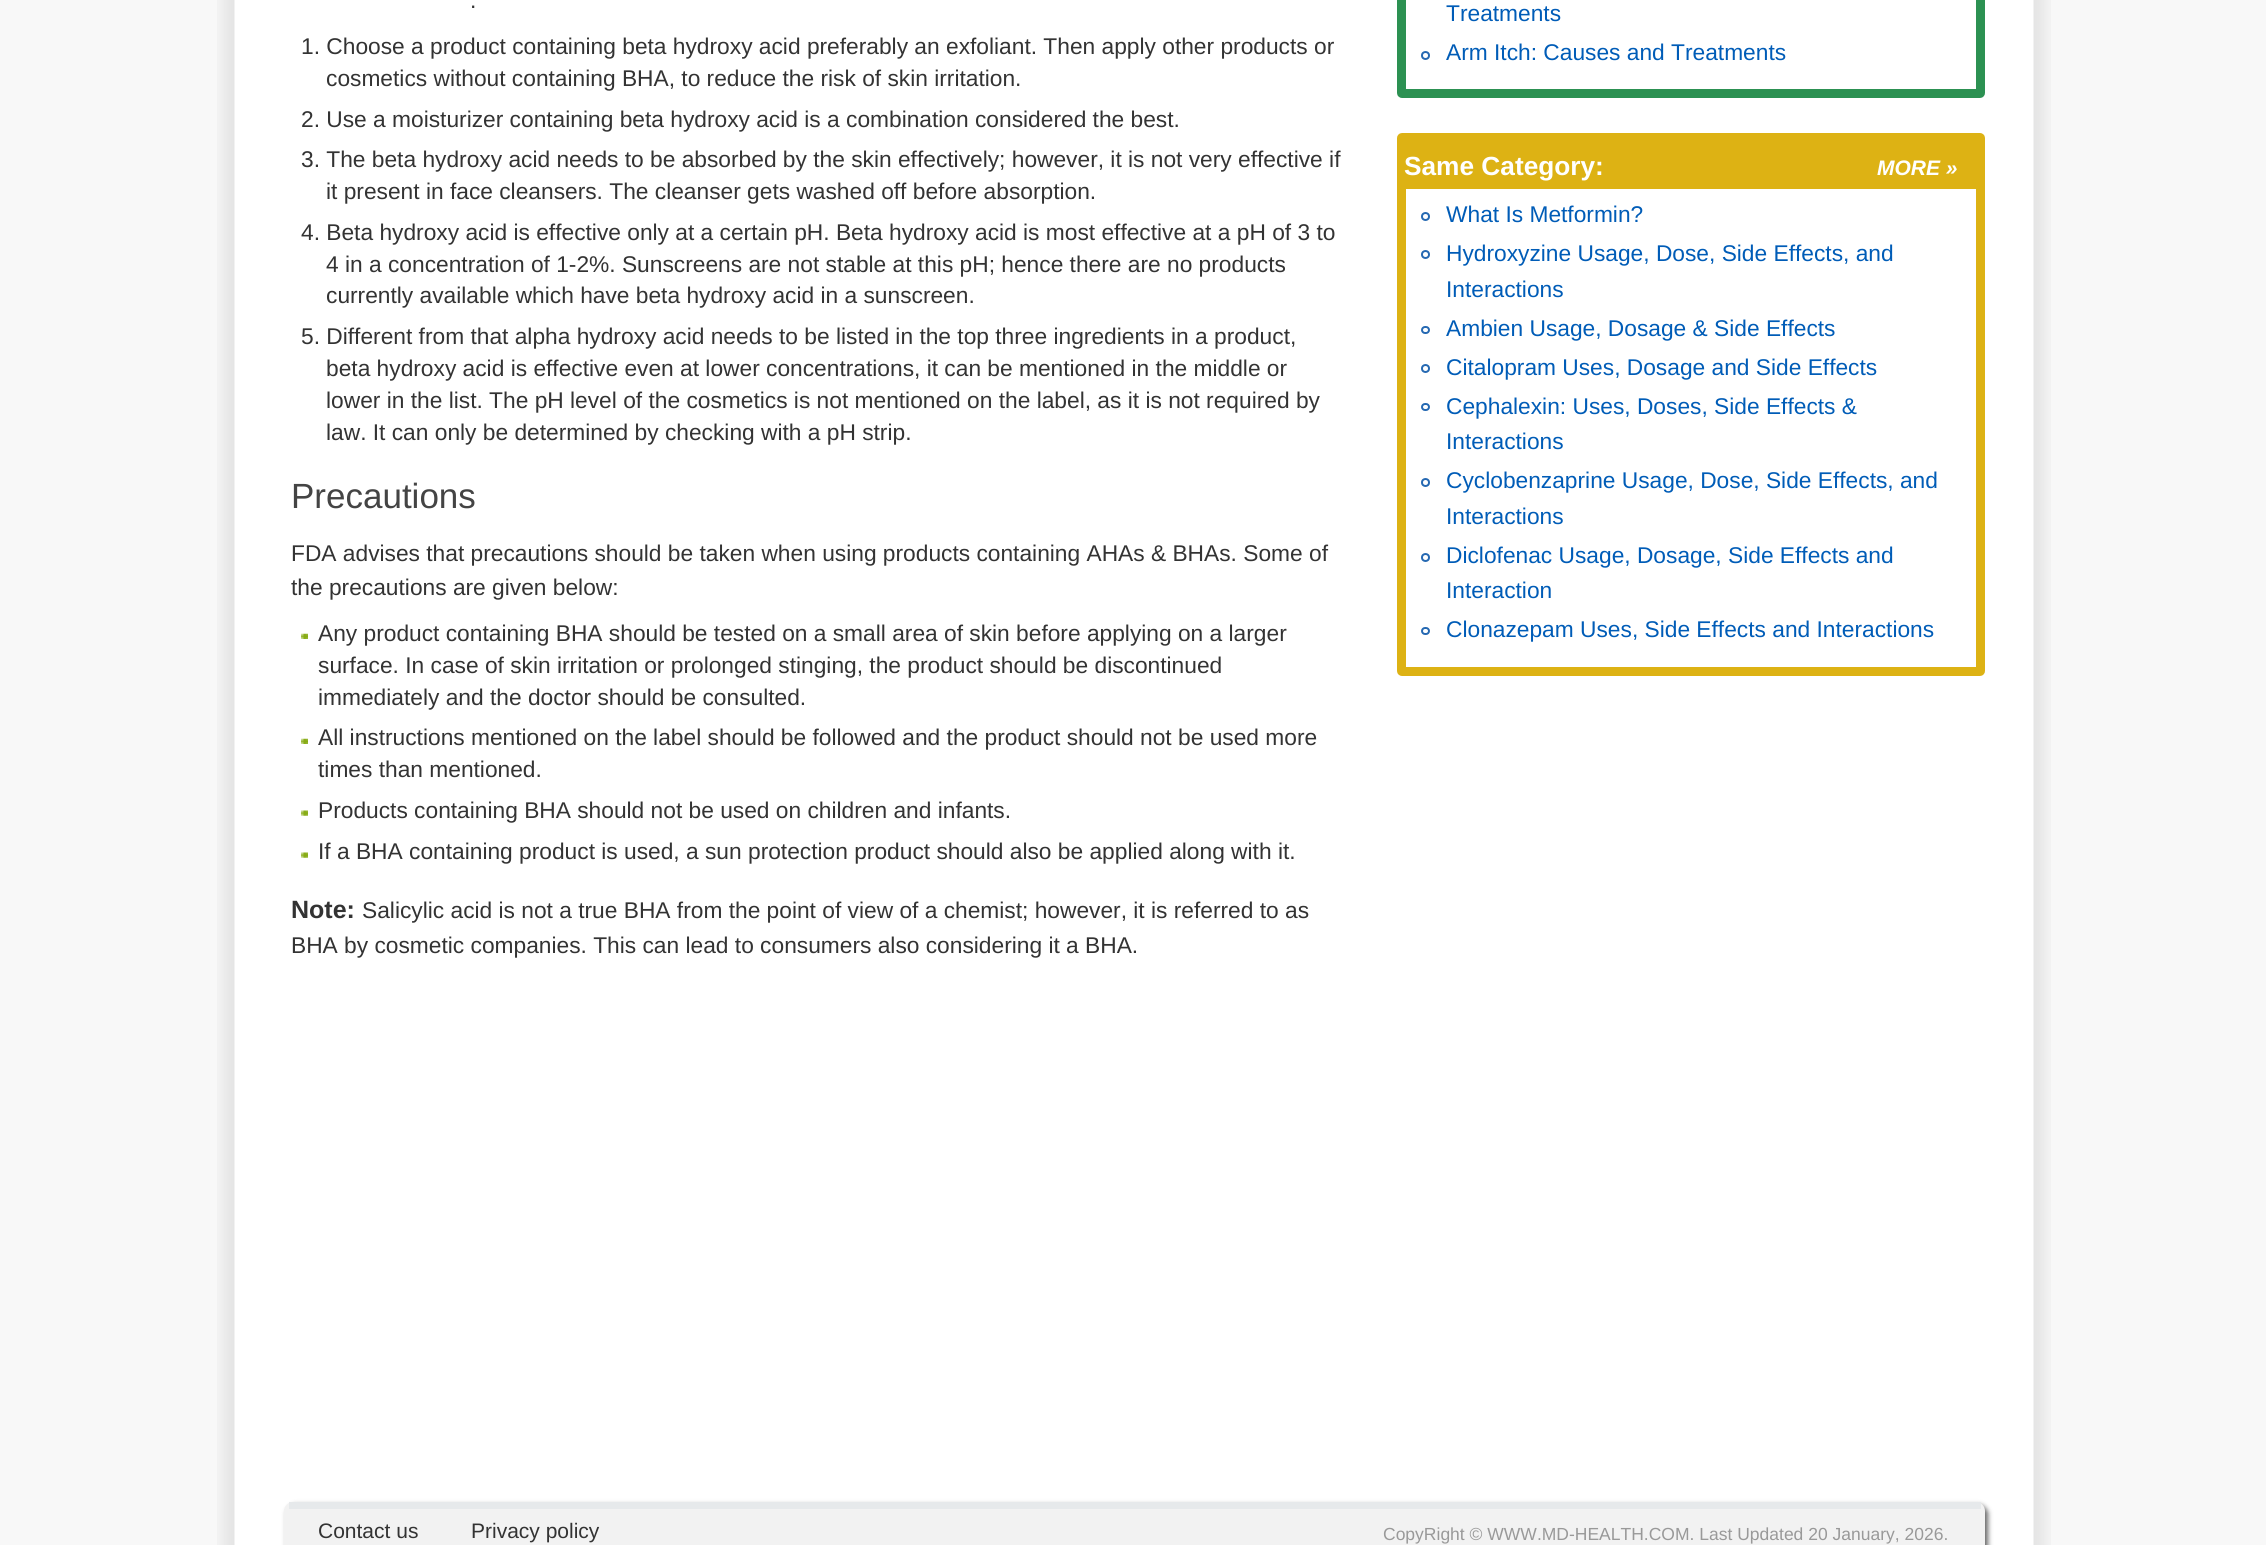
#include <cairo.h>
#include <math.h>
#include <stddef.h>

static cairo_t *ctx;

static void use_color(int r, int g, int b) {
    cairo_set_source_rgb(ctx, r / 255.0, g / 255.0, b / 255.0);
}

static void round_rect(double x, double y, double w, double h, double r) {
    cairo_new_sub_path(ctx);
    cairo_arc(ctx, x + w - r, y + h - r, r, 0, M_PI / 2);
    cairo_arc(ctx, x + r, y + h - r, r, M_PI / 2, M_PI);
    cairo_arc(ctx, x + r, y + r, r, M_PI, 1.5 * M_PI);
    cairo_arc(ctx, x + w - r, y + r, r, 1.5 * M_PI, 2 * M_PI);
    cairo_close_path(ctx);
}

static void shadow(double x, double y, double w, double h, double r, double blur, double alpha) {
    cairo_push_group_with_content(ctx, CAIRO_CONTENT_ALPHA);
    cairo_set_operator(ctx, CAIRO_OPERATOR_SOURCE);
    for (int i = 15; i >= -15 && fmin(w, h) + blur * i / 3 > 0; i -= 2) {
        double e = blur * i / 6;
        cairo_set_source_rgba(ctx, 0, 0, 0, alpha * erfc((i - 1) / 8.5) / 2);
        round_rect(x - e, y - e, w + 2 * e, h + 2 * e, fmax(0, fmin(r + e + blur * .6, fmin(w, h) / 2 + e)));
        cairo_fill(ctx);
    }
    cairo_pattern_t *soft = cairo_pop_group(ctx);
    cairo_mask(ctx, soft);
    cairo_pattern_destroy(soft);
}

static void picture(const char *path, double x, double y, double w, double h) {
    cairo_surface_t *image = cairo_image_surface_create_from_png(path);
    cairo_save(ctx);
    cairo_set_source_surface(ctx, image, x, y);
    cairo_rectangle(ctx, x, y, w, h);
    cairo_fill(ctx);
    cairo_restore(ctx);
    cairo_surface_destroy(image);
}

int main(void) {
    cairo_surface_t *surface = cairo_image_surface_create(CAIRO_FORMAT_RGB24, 2266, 1545);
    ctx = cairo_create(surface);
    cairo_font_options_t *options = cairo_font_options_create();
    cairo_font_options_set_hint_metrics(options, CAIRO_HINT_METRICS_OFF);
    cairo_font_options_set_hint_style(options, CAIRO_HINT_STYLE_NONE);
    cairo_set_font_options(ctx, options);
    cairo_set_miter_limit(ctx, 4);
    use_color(248, 248, 248);
    cairo_paint(ctx);
    picture("img1.png", 217, 0, 1834, 1545);
    cairo_select_font_face(ctx, "Liberation Sans", CAIRO_FONT_SLANT_NORMAL, CAIRO_FONT_WEIGHT_NORMAL);
    cairo_set_font_size(ctx, 22.75);
    use_color(51, 51, 51);
    cairo_move_to(ctx, 470, 8);
    cairo_show_text(ctx, ".");
    cairo_move_to(ctx, 301, 54);
    cairo_show_text(ctx, "1. Choose a product containing beta hydroxy acid preferably an exfoliant. Then apply other products or");
    cairo_move_to(ctx, 326, 86);
    cairo_show_text(ctx, "cosmetics without containing BHA, to reduce the risk of skin irritation.");
    cairo_move_to(ctx, 301, 127);
    cairo_show_text(ctx, "2. Use a moisturizer containing beta hydroxy acid is a combination considered the best.");
    cairo_move_to(ctx, 301, 167);
    cairo_show_text(ctx, "3. The beta hydroxy acid needs to be absorbed by the skin effectively; however, it is not very effective if");
    cairo_move_to(ctx, 326, 199);
    cairo_show_text(ctx, "it present in face cleansers. The cleanser gets washed off before absorption.");
    cairo_move_to(ctx, 301, 240);
    cairo_show_text(ctx, "4. Beta hydroxy acid is effective only at a certain pH. Beta hydroxy acid is most effective at a pH of 3 to");
    cairo_move_to(ctx, 326, 272);
    cairo_show_text(ctx, "4 in a concentration of 1-2%. Sunscreens are not stable at this pH; hence there are no products");
    cairo_move_to(ctx, 326, 303);
    cairo_show_text(ctx, "currently available which have beta hydroxy acid in a sunscreen.");
    cairo_move_to(ctx, 301, 344);
    cairo_show_text(ctx, "5. Different from that alpha hydroxy acid needs to be listed in the top three ingredients in a product,");
    cairo_move_to(ctx, 326, 376);
    cairo_show_text(ctx, "beta hydroxy acid is effective even at lower concentrations, it can be mentioned in the middle or");
    cairo_move_to(ctx, 326, 408);
    cairo_show_text(ctx, "lower in the list. The pH level of the cosmetics is not mentioned on the label, as it is not required by");
    cairo_move_to(ctx, 326, 440);
    cairo_show_text(ctx, "law. It can only be determined by checking with a pH strip.");
    cairo_set_font_size(ctx, 35);
    use_color(68, 68, 68);
    cairo_move_to(ctx, 291, 508);
    cairo_show_text(ctx, "Precautions");
    cairo_set_font_size(ctx, 22.75);
    use_color(51, 51, 51);
    cairo_move_to(ctx, 291, 561);
    cairo_show_text(ctx, "FDA advises that precautions should be taken when using products containing AHAs & BHAs. Some of");
    cairo_move_to(ctx, 291, 595);
    cairo_show_text(ctx, "the precautions are given below:");
    picture("img2.png", 301, 633, 7, 6);
    cairo_move_to(ctx, 318, 641);
    cairo_show_text(ctx, "Any product containing BHA should be tested on a small area of skin before applying on a larger");
    cairo_move_to(ctx, 318, 673);
    cairo_show_text(ctx, "surface. In case of skin irritation or prolonged stinging, the product should be discontinued");
    cairo_move_to(ctx, 318, 705);
    cairo_show_text(ctx, "immediately and the doctor should be consulted.");
    picture("img2.png", 301, 738, 7, 6);
    cairo_move_to(ctx, 318, 745);
    cairo_show_text(ctx, "All instructions mentioned on the label should be followed and the product should not be used more");
    cairo_move_to(ctx, 318, 777);
    cairo_show_text(ctx, "times than mentioned.");
    picture("img3.png", 301, 810, 7, 6);
    cairo_move_to(ctx, 318, 818);
    cairo_show_text(ctx, "Products containing BHA should not be used on children and infants.");
    picture("img3.png", 301, 852, 7, 6);
    cairo_move_to(ctx, 318, 859);
    cairo_show_text(ctx, "If a BHA containing product is used, a sun protection product should also be applied along with it.");
    cairo_select_font_face(ctx, "Liberation Sans", CAIRO_FONT_SLANT_NORMAL, CAIRO_FONT_WEIGHT_BOLD);
    cairo_set_font_size(ctx, 25);
    cairo_move_to(ctx, 291, 918);
    cairo_show_text(ctx, "Note:");
    cairo_select_font_face(ctx, "Liberation Sans", CAIRO_FONT_SLANT_NORMAL, CAIRO_FONT_WEIGHT_NORMAL);
    cairo_set_font_size(ctx, 22.75);
    cairo_move_to(ctx, 362, 918);
    cairo_show_text(ctx, "Salicylic acid is not a true BHA from the point of view of a chemist; however, it is referred to as");
    cairo_move_to(ctx, 291, 953);
    cairo_show_text(ctx, "BHA by cosmetic companies. This can lead to consumers also considering it a BHA.");
    round_rect(1401.5, -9.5, 579, 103, 0.5);
    use_color(44, 145, 82);
    cairo_set_line_width(ctx, 9);
    cairo_stroke(ctx);
    use_color(0, 92, 183);
    cairo_move_to(ctx, 1446, 21);
    cairo_show_text(ctx, "Treatments");
    cairo_new_path(ctx);
    cairo_arc(ctx, 1425.5, 55.5, 3.5, 0, 2 * M_PI);
    use_color(38, 105, 178);
    cairo_set_line_width(ctx, 2);
    cairo_stroke(ctx);
    use_color(0, 92, 183);
    cairo_move_to(ctx, 1446, 60);
    cairo_show_text(ctx, "Arm Itch: Causes and Treatments");
    round_rect(1401.5, 137.5, 579, 534, 0.5);
    use_color(221, 178, 20);
    cairo_set_line_width(ctx, 9);
    cairo_stroke(ctx);
    cairo_rectangle(ctx, 1406, 142, 570, 47);
    cairo_fill(ctx);
    cairo_select_font_face(ctx, "Liberation Sans", CAIRO_FONT_SLANT_NORMAL, CAIRO_FONT_WEIGHT_BOLD);
    cairo_set_font_size(ctx, 26.25);
    use_color(255, 255, 255);
    cairo_move_to(ctx, 1404, 175);
    cairo_show_text(ctx, "Same Category:");
    cairo_select_font_face(ctx, "Liberation Sans", CAIRO_FONT_SLANT_ITALIC, CAIRO_FONT_WEIGHT_BOLD);
    cairo_set_font_size(ctx, 21);
    cairo_move_to(ctx, 1877, 175);
    cairo_show_text(ctx, "MORE »");
    cairo_new_path(ctx);
    cairo_arc(ctx, 1425.5, 216.5, 3.5, 0, 2 * M_PI);
    use_color(38, 105, 178);
    cairo_set_line_width(ctx, 2);
    cairo_stroke(ctx);
    cairo_select_font_face(ctx, "Liberation Sans", CAIRO_FONT_SLANT_NORMAL, CAIRO_FONT_WEIGHT_NORMAL);
    cairo_set_font_size(ctx, 22.75);
    use_color(0, 92, 183);
    cairo_move_to(ctx, 1446, 222);
    cairo_show_text(ctx, "What Is Metformin?");
    cairo_new_path(ctx);
    cairo_arc(ctx, 1425.5, 254.5, 3.5, 0, 2 * M_PI);
    use_color(38, 105, 178);
    cairo_stroke(ctx);
    use_color(0, 92, 183);
    cairo_move_to(ctx, 1446, 261);
    cairo_show_text(ctx, "Hydroxyzine Usage, Dose, Side Effects, and");
    cairo_move_to(ctx, 1446, 297);
    cairo_show_text(ctx, "Interactions");
    round_rect(1422, 327, 7, 6, 3);
    use_color(38, 105, 178);
    cairo_stroke(ctx);
    use_color(0, 92, 183);
    cairo_move_to(ctx, 1446, 336);
    cairo_show_text(ctx, "Ambien Usage, Dosage & Side Effects");
    cairo_new_path(ctx);
    cairo_arc(ctx, 1425.5, 368.5, 3.5, 0, 2 * M_PI);
    use_color(38, 105, 178);
    cairo_stroke(ctx);
    use_color(0, 92, 183);
    cairo_move_to(ctx, 1446, 375);
    cairo_show_text(ctx, "Citalopram Uses, Dosage and Side Effects");
    round_rect(1422, 404, 7, 6, 3);
    use_color(38, 105, 178);
    cairo_stroke(ctx);
    use_color(0, 92, 183);
    cairo_move_to(ctx, 1446, 414);
    cairo_show_text(ctx, "Cephalexin: Uses, Doses, Side Effects &");
    cairo_move_to(ctx, 1446, 449);
    cairo_show_text(ctx, "Interactions");
    cairo_new_path(ctx);
    cairo_arc(ctx, 1425.5, 482.5, 3.5, 0, 2 * M_PI);
    use_color(38, 105, 178);
    cairo_stroke(ctx);
    use_color(0, 92, 183);
    cairo_move_to(ctx, 1446, 488);
    cairo_show_text(ctx, "Cyclobenzaprine Usage, Dose, Side Effects, and");
    cairo_move_to(ctx, 1446, 524);
    cairo_show_text(ctx, "Interactions");
    cairo_new_path(ctx);
    cairo_arc(ctx, 1425.5, 557.5, 3.5, 0, 2 * M_PI);
    use_color(38, 105, 178);
    cairo_stroke(ctx);
    use_color(0, 92, 183);
    cairo_move_to(ctx, 1446, 563);
    cairo_show_text(ctx, "Diclofenac Usage, Dosage, Side Effects and");
    cairo_move_to(ctx, 1446, 598);
    cairo_show_text(ctx, "Interaction");
    round_rect(1422, 628, 7, 6, 3);
    use_color(38, 105, 178);
    cairo_stroke(ctx);
    use_color(0, 92, 183);
    cairo_move_to(ctx, 1446, 637);
    cairo_show_text(ctx, "Clonazepam Uses, Side Effects and Interactions");
    use_color(102, 102, 102);
    shadow(287, 1505, 1701, 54, 9, 2.5, 1);
    use_color(242, 242, 242);
    round_rect(284, 1502, 1701, 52, 9);
    cairo_fill(ctx);
    use_color(230, 233, 235);
    cairo_rectangle(ctx, 289, 1502, 1692, 7);
    cairo_fill(ctx);
    cairo_set_font_size(ctx, 21);
    use_color(51, 51, 51);
    cairo_move_to(ctx, 318, 1538);
    cairo_show_text(ctx, "Contact us");
    cairo_move_to(ctx, 471, 1538);
    cairo_show_text(ctx, "Privacy policy");
    cairo_set_font_size(ctx, 17.5);
    use_color(153, 153, 153);
    cairo_move_to(ctx, 1383, 1540);
    cairo_show_text(ctx, "CopyRight © WWW.MD-HEALTH.COM. Last Updated 20 January, 2026.");
    cairo_surface_write_to_png(surface, "result.png");
    cairo_font_options_destroy(options);
    cairo_destroy(ctx);
    cairo_surface_destroy(surface);
    return 0;
}
